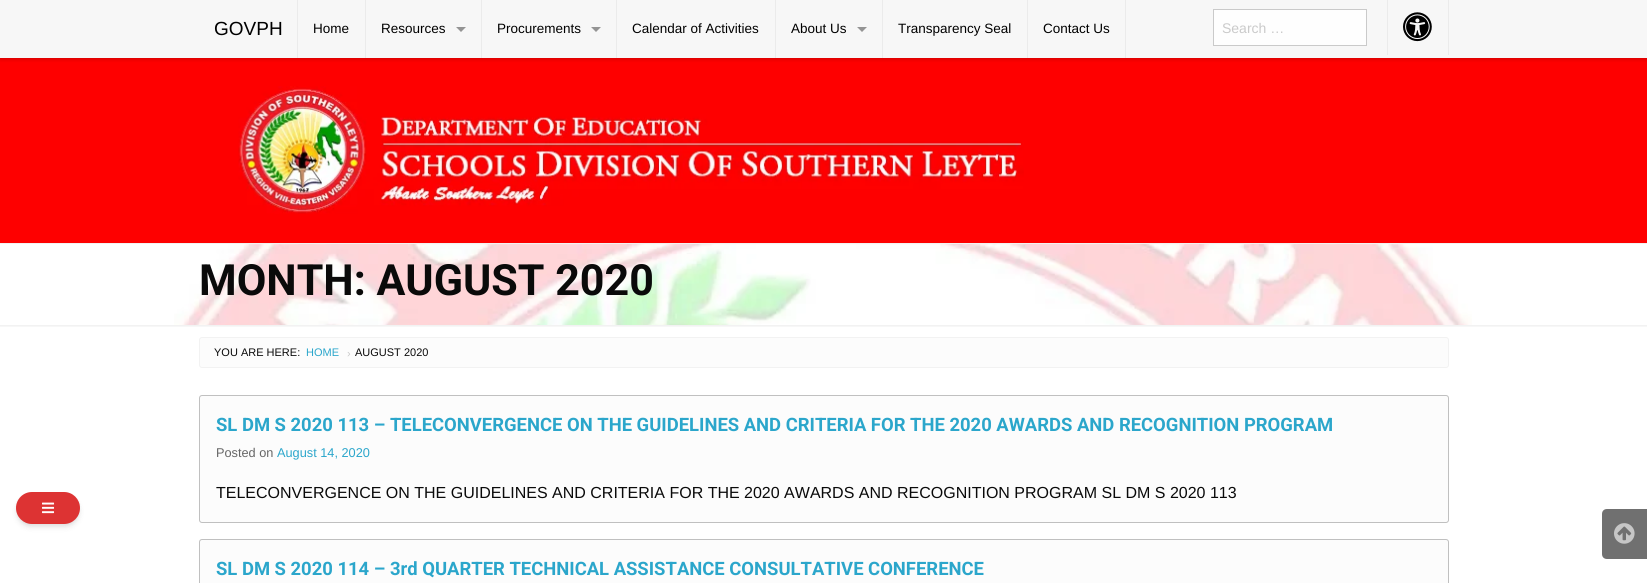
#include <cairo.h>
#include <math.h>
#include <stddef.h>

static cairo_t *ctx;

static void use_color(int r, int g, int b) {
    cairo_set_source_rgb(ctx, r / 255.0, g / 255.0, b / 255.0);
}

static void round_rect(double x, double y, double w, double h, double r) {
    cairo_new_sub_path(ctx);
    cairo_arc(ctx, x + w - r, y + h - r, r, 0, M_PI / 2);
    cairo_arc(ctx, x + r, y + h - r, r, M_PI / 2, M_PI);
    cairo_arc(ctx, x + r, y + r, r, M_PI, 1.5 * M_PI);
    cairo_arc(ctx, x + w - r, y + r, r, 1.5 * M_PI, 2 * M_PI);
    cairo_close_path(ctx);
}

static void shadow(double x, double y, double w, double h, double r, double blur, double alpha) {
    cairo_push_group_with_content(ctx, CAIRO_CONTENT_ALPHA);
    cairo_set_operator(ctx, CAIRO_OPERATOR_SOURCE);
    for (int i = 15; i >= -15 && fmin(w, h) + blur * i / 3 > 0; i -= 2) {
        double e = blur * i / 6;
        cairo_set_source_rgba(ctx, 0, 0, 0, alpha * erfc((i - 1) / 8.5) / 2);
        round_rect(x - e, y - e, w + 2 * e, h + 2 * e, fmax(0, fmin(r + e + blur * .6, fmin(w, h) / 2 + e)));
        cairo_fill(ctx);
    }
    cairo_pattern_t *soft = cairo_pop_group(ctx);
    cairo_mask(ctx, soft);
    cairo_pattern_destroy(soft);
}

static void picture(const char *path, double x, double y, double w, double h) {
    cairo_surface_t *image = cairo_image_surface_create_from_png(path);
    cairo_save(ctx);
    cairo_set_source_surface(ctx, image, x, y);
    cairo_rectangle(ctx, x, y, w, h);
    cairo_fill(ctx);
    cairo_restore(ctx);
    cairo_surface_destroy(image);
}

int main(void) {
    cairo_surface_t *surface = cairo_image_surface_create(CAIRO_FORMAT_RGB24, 1647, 583);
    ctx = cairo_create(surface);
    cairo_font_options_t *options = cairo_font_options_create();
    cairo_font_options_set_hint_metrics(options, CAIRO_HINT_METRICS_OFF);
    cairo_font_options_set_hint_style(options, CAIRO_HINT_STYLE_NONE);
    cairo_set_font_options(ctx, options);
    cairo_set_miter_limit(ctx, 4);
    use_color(255, 255, 255);
    cairo_paint(ctx);
    use_color(0, 0, 0);
    shadow(17, 495, 62, 30, 15, 2, 0.06);
    shadow(17, 497, 62, 30, 15, 3, 0.1);
    use_color(221, 51, 51);
    round_rect(16, 492, 64, 32, 16);
    cairo_fill(ctx);
    picture("img1.png", 42, 502, 13, 12);
    use_color(254, 0, 0);
    cairo_rectangle(ctx, 0, 58, 1647, 185);
    cairo_fill(ctx);
    use_color(0, 0, 0);
    shadow(0, 1, 1647, 58, 0, 2, 0.2);
    use_color(247, 247, 247);
    cairo_rectangle(ctx, 0, 0, 1647, 58);
    cairo_fill(ctx);
    use_color(235, 235, 235);
    cairo_rectangle(ctx, 297, 0, 1, 58);
    cairo_fill(ctx);
    cairo_select_font_face(ctx, "Liberation Sans", CAIRO_FONT_SLANT_NORMAL, CAIRO_FONT_WEIGHT_NORMAL);
    cairo_set_font_size(ctx, 19);
    use_color(0, 0, 0);
    cairo_move_to(ctx, 214, 35);
    cairo_show_text(ctx, "GOVPH");
    use_color(235, 235, 235);
    cairo_rectangle(ctx, 365, 0, 1, 58);
    cairo_fill(ctx);
    cairo_set_font_size(ctx, 13.5);
    use_color(0, 0, 0);
    cairo_move_to(ctx, 313, 33);
    cairo_show_text(ctx, "Home");
    use_color(235, 235, 235);
    cairo_rectangle(ctx, 481, 0, 1, 58);
    cairo_fill(ctx);
    use_color(0, 0, 0);
    cairo_move_to(ctx, 381, 33);
    cairo_show_text(ctx, "Resources");
    use_color(148, 148, 148);
    cairo_new_path(ctx);
    cairo_move_to(ctx, 456, 27);
    cairo_line_to(ctx, 466, 27);
    cairo_line_to(ctx, 461, 32);
    cairo_close_path(ctx);
    cairo_fill(ctx);
    use_color(235, 235, 235);
    cairo_rectangle(ctx, 616, 0, 1, 58);
    cairo_fill(ctx);
    use_color(0, 0, 0);
    cairo_move_to(ctx, 497, 33);
    cairo_show_text(ctx, "Procurements");
    use_color(148, 148, 148);
    cairo_new_path(ctx);
    cairo_move_to(ctx, 591, 27);
    cairo_line_to(ctx, 601, 27);
    cairo_line_to(ctx, 596, 32);
    cairo_close_path(ctx);
    cairo_fill(ctx);
    use_color(235, 235, 235);
    cairo_rectangle(ctx, 775, 0, 1, 58);
    cairo_fill(ctx);
    use_color(0, 0, 0);
    cairo_move_to(ctx, 632, 33);
    cairo_show_text(ctx, "Calendar of Activities");
    use_color(235, 235, 235);
    cairo_rectangle(ctx, 882, 0, 1, 58);
    cairo_fill(ctx);
    use_color(0, 0, 0);
    cairo_move_to(ctx, 791, 33);
    cairo_show_text(ctx, "About Us");
    use_color(148, 148, 148);
    cairo_new_path(ctx);
    cairo_move_to(ctx, 857, 27);
    cairo_line_to(ctx, 867, 27);
    cairo_line_to(ctx, 862, 32);
    cairo_close_path(ctx);
    cairo_fill(ctx);
    use_color(235, 235, 235);
    cairo_rectangle(ctx, 1027, 0, 1, 58);
    cairo_fill(ctx);
    use_color(0, 0, 0);
    cairo_move_to(ctx, 898, 33);
    cairo_show_text(ctx, "Transparency Seal");
    use_color(235, 235, 235);
    cairo_rectangle(ctx, 1125, 0, 1, 58);
    cairo_fill(ctx);
    use_color(0, 0, 0);
    cairo_move_to(ctx, 1043, 33);
    cairo_show_text(ctx, "Contact Us");
    use_color(235, 235, 235);
    cairo_rectangle(ctx, 1387, 0, 1, 55);
    cairo_fill(ctx);
    use_color(254, 254, 254);
    cairo_rectangle(ctx, 1213.5, 9.5, 153, 36);
    cairo_fill_preserve(ctx);
    use_color(202, 202, 202);
    cairo_set_line_width(ctx, 1);
    cairo_stroke(ctx);
    cairo_set_font_size(ctx, 14);
    cairo_move_to(ctx, 1222, 33);
    cairo_show_text(ctx, "Search …");
    use_color(235, 235, 235);
    cairo_rectangle(ctx, 1448, 0, 1, 55);
    cairo_fill(ctx);
    picture("img2.png", 1403, 12, 29, 30);
    picture("img3.png", 238, 86, 786, 128);
    picture("img4.png", 174, 244, 1298, 81);
    use_color(242, 242, 242);
    cairo_rectangle(ctx, 0, 243, 1647, 1);
    cairo_fill(ctx);
    cairo_rectangle(ctx, 0, 325, 1647, 1);
    cairo_fill(ctx);
    cairo_select_font_face(ctx, "Roboto", CAIRO_FONT_SLANT_NORMAL, CAIRO_FONT_WEIGHT_BOLD);
    cairo_set_font_size(ctx, 43);
    use_color(10, 10, 10);
    cairo_move_to(ctx, 199, 295);
    cairo_show_text(ctx, "MONTH: AUGUST 2020");
    use_color(247, 247, 247);
    cairo_rectangle(ctx, 0, 326, 1647, 1);
    cairo_fill(ctx);
    use_color(252, 252, 252);
    round_rect(199.5, 337.5, 1249, 30, 2.5);
    cairo_fill_preserve(ctx);
    use_color(242, 242, 242);
    cairo_stroke(ctx);
    cairo_select_font_face(ctx, "Liberation Sans", CAIRO_FONT_SLANT_NORMAL, CAIRO_FONT_WEIGHT_NORMAL);
    cairo_set_font_size(ctx, 11);
    use_color(10, 10, 10);
    cairo_move_to(ctx, 214, 356);
    cairo_show_text(ctx, "YOU ARE HERE:");
    use_color(43, 166, 203);
    cairo_move_to(ctx, 306, 356);
    cairo_show_text(ctx, "HOME");
    use_color(202, 202, 202);
    cairo_move_to(ctx, 347, 357);
    cairo_show_text(ctx, "›");
    use_color(10, 10, 10);
    cairo_move_to(ctx, 355, 356);
    cairo_show_text(ctx, "AUGUST 2020");
    use_color(252, 252, 252);
    round_rect(199.5, 395.5, 1249, 127, 2.5);
    cairo_fill_preserve(ctx);
    use_color(192, 192, 192);
    cairo_stroke(ctx);
    cairo_select_font_face(ctx, "Roboto", CAIRO_FONT_SLANT_NORMAL, CAIRO_FONT_WEIGHT_BOLD);
    cairo_set_font_size(ctx, 18.43);
    use_color(43, 166, 203);
    cairo_move_to(ctx, 216, 431);
    cairo_show_text(ctx, "SL DM S 2020 113 – TELECONVERGENCE ON THE GUIDELINES AND CRITERIA FOR THE 2020 AWARDS AND RECOGNITION PROGRAM");
    cairo_select_font_face(ctx, "Liberation Sans", CAIRO_FONT_SLANT_NORMAL, CAIRO_FONT_WEIGHT_NORMAL);
    cairo_set_font_size(ctx, 12.75);
    use_color(102, 102, 102);
    cairo_move_to(ctx, 216, 457);
    cairo_show_text(ctx, "Posted on");
    use_color(43, 166, 203);
    cairo_move_to(ctx, 277, 457);
    cairo_show_text(ctx, "August 14, 2020");
    cairo_set_font_size(ctx, 16);
    use_color(10, 10, 10);
    cairo_move_to(ctx, 216, 498);
    cairo_show_text(ctx, "TELECONVERGENCE ON THE GUIDELINES AND CRITERIA FOR THE 2020 AWARDS AND RECOGNITION PROGRAM SL DM S 2020 113");
    use_color(252, 252, 252);
    round_rect(199.5, 539.5, 1249, 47, 2.5);
    cairo_fill_preserve(ctx);
    use_color(192, 192, 192);
    cairo_stroke(ctx);
    cairo_select_font_face(ctx, "Roboto", CAIRO_FONT_SLANT_NORMAL, CAIRO_FONT_WEIGHT_BOLD);
    cairo_set_font_size(ctx, 18.43);
    use_color(43, 166, 203);
    cairo_move_to(ctx, 216, 575);
    cairo_show_text(ctx, "SL DM S 2020 114 – 3rd QUARTER TECHNICAL ASSISTANCE CONSULTATIVE CONFERENCE");
    use_color(112, 112, 112);
    cairo_new_path(ctx);
    cairo_move_to(ctx, 1607, 509);
    cairo_line_to(ctx, 1647, 509);
    cairo_line_to(ctx, 1647, 559);
    cairo_line_to(ctx, 1607, 559);
    cairo_curve_to(ctx, 1604, 559, 1602, 557, 1602, 554);
    cairo_line_to(ctx, 1602, 514);
    cairo_curve_to(ctx, 1602, 511, 1604, 509, 1607, 509);
    cairo_close_path(ctx);
    cairo_fill(ctx);
    picture("img5.png", 1614, 523, 21, 21);
    cairo_surface_write_to_png(surface, "result.png");
    cairo_font_options_destroy(options);
    cairo_destroy(ctx);
    cairo_surface_destroy(surface);
    return 0;
}
